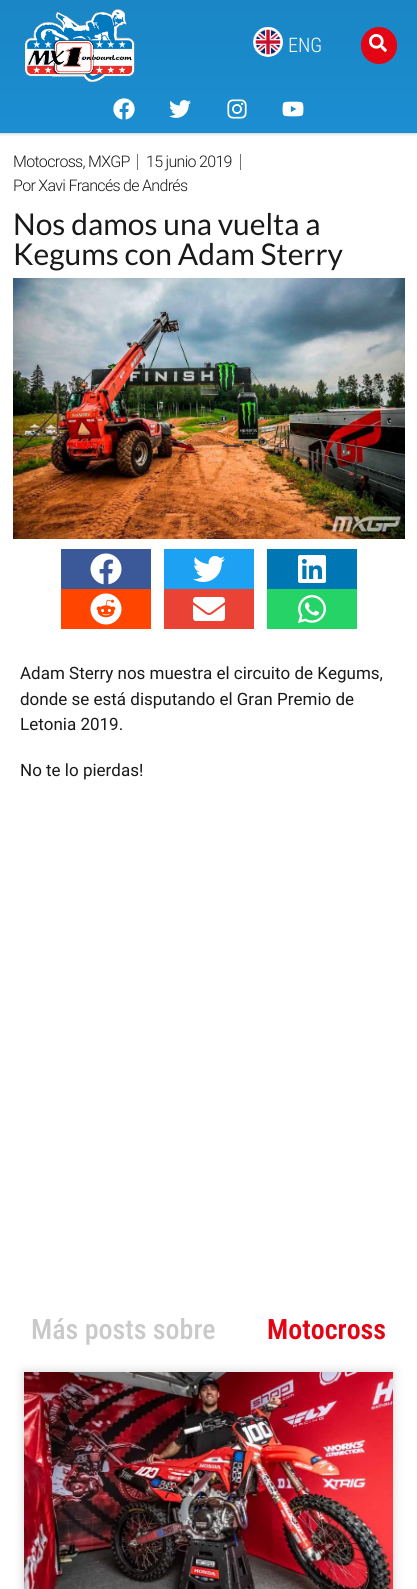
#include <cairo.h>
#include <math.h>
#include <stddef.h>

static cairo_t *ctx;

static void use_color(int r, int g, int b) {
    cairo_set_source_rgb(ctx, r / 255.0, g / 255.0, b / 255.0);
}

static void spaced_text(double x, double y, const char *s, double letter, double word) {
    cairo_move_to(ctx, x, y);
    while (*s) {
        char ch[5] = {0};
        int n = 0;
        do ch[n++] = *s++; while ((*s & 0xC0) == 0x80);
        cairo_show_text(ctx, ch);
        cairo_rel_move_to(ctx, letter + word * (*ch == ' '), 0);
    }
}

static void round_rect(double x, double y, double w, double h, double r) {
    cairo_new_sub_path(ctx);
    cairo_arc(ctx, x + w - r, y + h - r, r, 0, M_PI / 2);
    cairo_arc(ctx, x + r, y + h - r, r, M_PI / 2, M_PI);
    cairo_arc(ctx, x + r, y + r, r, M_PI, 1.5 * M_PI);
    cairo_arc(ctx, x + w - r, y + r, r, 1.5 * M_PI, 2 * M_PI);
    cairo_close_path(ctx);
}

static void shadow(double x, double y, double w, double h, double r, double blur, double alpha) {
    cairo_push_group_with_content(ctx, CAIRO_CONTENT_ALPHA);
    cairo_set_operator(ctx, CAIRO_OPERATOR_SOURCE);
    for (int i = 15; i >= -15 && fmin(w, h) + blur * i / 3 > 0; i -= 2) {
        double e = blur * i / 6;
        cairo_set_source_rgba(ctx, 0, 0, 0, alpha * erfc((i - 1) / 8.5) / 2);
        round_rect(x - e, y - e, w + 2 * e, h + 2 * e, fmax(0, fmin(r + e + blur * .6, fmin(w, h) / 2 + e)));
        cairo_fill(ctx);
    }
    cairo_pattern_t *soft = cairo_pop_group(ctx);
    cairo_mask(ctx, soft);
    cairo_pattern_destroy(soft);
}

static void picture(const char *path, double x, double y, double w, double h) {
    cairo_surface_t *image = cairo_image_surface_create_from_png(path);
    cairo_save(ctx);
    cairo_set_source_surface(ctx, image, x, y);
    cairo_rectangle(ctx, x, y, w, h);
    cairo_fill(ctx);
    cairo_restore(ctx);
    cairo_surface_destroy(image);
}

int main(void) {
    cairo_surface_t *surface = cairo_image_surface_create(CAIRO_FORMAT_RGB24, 417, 1589);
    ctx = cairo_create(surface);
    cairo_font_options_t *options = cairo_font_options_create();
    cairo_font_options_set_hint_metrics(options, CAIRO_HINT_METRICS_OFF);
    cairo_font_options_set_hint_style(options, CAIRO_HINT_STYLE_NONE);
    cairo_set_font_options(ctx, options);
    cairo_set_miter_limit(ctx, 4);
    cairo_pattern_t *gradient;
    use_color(255, 255, 255);
    cairo_paint(ctx);
    use_color(0, 0, 0);
    shadow(0, 0, 417, 133, 0, 2, 0.3);
    gradient = cairo_pattern_create_linear(209, 0, 209, 133);
    cairo_pattern_add_color_stop_rgba(gradient, 0, 0.102, 0.525, 0.769, 1);
    cairo_pattern_add_color_stop_rgba(gradient, 1, 0.106, 0.557, 0.82, 1);
    cairo_set_source(ctx, gradient);
    cairo_pattern_destroy(gradient);
    cairo_rectangle(ctx, 0, 0, 417, 133);
    cairo_fill(ctx);
    picture("img1.png", 24, 9, 111, 73);
    picture("img2.png", 253, 27, 30, 30);
    cairo_select_font_face(ctx, "Roboto Condensed Light", CAIRO_FONT_SLANT_NORMAL, CAIRO_FONT_WEIGHT_NORMAL);
    cairo_set_font_size(ctx, 20);
    use_color(255, 255, 255);
    cairo_move_to(ctx, 288, 52);
    cairo_show_text(ctx, "ENG");
    use_color(227, 5, 20);
    round_rect(361, 27, 36, 37, 18);
    cairo_fill(ctx);
    picture("img3.png", 369, 34, 18, 18);
    picture("img4.png", 113, 98, 22, 22);
    picture("img5.png", 169, 100, 22, 18);
    picture("img6.png", 227, 99, 20, 20);
    picture("img7.png", 282, 101, 22, 16);
    cairo_select_font_face(ctx, "Roboto Light", CAIRO_FONT_SLANT_NORMAL, CAIRO_FONT_WEIGHT_NORMAL);
    cairo_set_font_size(ctx, 16);
    use_color(26, 25, 25);
    spaced_text(13, 167, "Motocross, MXGP", -0.7, 0);
    use_color(115, 116, 119);
    cairo_rectangle(ctx, 137, 154, 1, 16);
    cairo_fill(ctx);
    use_color(26, 25, 25);
    spaced_text(146, 167, "15 junio 2019", -0.7, 0);
    use_color(115, 116, 119);
    cairo_rectangle(ctx, 240, 154, 1, 16);
    cairo_fill(ctx);
    use_color(26, 25, 25);
    spaced_text(13, 191, "Por Xavi Francés de Andrés", -0.7, 0);
    cairo_select_font_face(ctx, "Lato", CAIRO_FONT_SLANT_NORMAL, CAIRO_FONT_WEIGHT_NORMAL);
    cairo_set_font_size(ctx, 30);
    cairo_move_to(ctx, 13, 235);
    cairo_show_text(ctx, "Nos damos una vuelta a");
    cairo_move_to(ctx, 13, 265);
    cairo_show_text(ctx, "Kegums con Adam Sterry");
    picture("img8.png", 13, 278, 392, 261);
    use_color(59, 89, 152);
    cairo_rectangle(ctx, 61, 549, 90, 40);
    cairo_fill(ctx);
    picture("img9.png", 90, 553, 32, 32);
    use_color(29, 161, 242);
    cairo_rectangle(ctx, 164, 549, 90, 40);
    cairo_fill(ctx);
    picture("img10.png", 193, 556, 32, 26);
    use_color(0, 119, 181);
    cairo_rectangle(ctx, 267, 549, 90, 40);
    cairo_fill(ctx);
    picture("img11.png", 298, 555, 28, 28);
    use_color(255, 69, 0);
    cairo_rectangle(ctx, 61, 589, 90, 40);
    cairo_fill(ctx);
    picture("img12.png", 90, 593, 32, 32);
    use_color(234, 67, 53);
    cairo_rectangle(ctx, 164, 589, 90, 40);
    cairo_fill(ctx);
    picture("img13.png", 193, 597, 32, 24);
    use_color(37, 211, 102);
    cairo_rectangle(ctx, 267, 589, 90, 40);
    cairo_fill(ctx);
    picture("img14.png", 298, 595, 28, 28);
    cairo_select_font_face(ctx, "Roboto", CAIRO_FONT_SLANT_NORMAL, CAIRO_FONT_WEIGHT_NORMAL);
    cairo_set_font_size(ctx, 17);
    use_color(26, 25, 25);
    cairo_move_to(ctx, 20, 679);
    cairo_show_text(ctx, "Adam Sterry nos muestra el circuito de Kegums,");
    cairo_move_to(ctx, 20, 705);
    cairo_show_text(ctx, "donde se está disputando el Gran Premio de");
    cairo_move_to(ctx, 20, 730);
    cairo_show_text(ctx, "Letonia 2019.");
    cairo_move_to(ctx, 20, 776);
    cairo_show_text(ctx, "No te lo pierdas!");
    cairo_select_font_face(ctx, "Roboto Condensed Medium", CAIRO_FONT_SLANT_NORMAL, CAIRO_FONT_WEIGHT_NORMAL);
    cairo_set_font_size(ctx, 28);
    use_color(201, 201, 201);
    cairo_move_to(ctx, 31, 1339);
    cairo_show_text(ctx, "Más posts sobre");
    cairo_select_font_face(ctx, "Roboto Condensed SemiBold", CAIRO_FONT_SLANT_NORMAL, CAIRO_FONT_WEIGHT_NORMAL);
    use_color(227, 5, 20);
    cairo_move_to(ctx, 267, 1339);
    cairo_show_text(ctx, "Motocross");
    use_color(0, 0, 0);
    shadow(24, 1372, 369, 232, 0, 5, 0.18);
    picture("img15.png", 24, 1372, 369, 217);
    cairo_surface_write_to_png(surface, "result.png");
    cairo_font_options_destroy(options);
    cairo_destroy(ctx);
    cairo_surface_destroy(surface);
    return 0;
}
